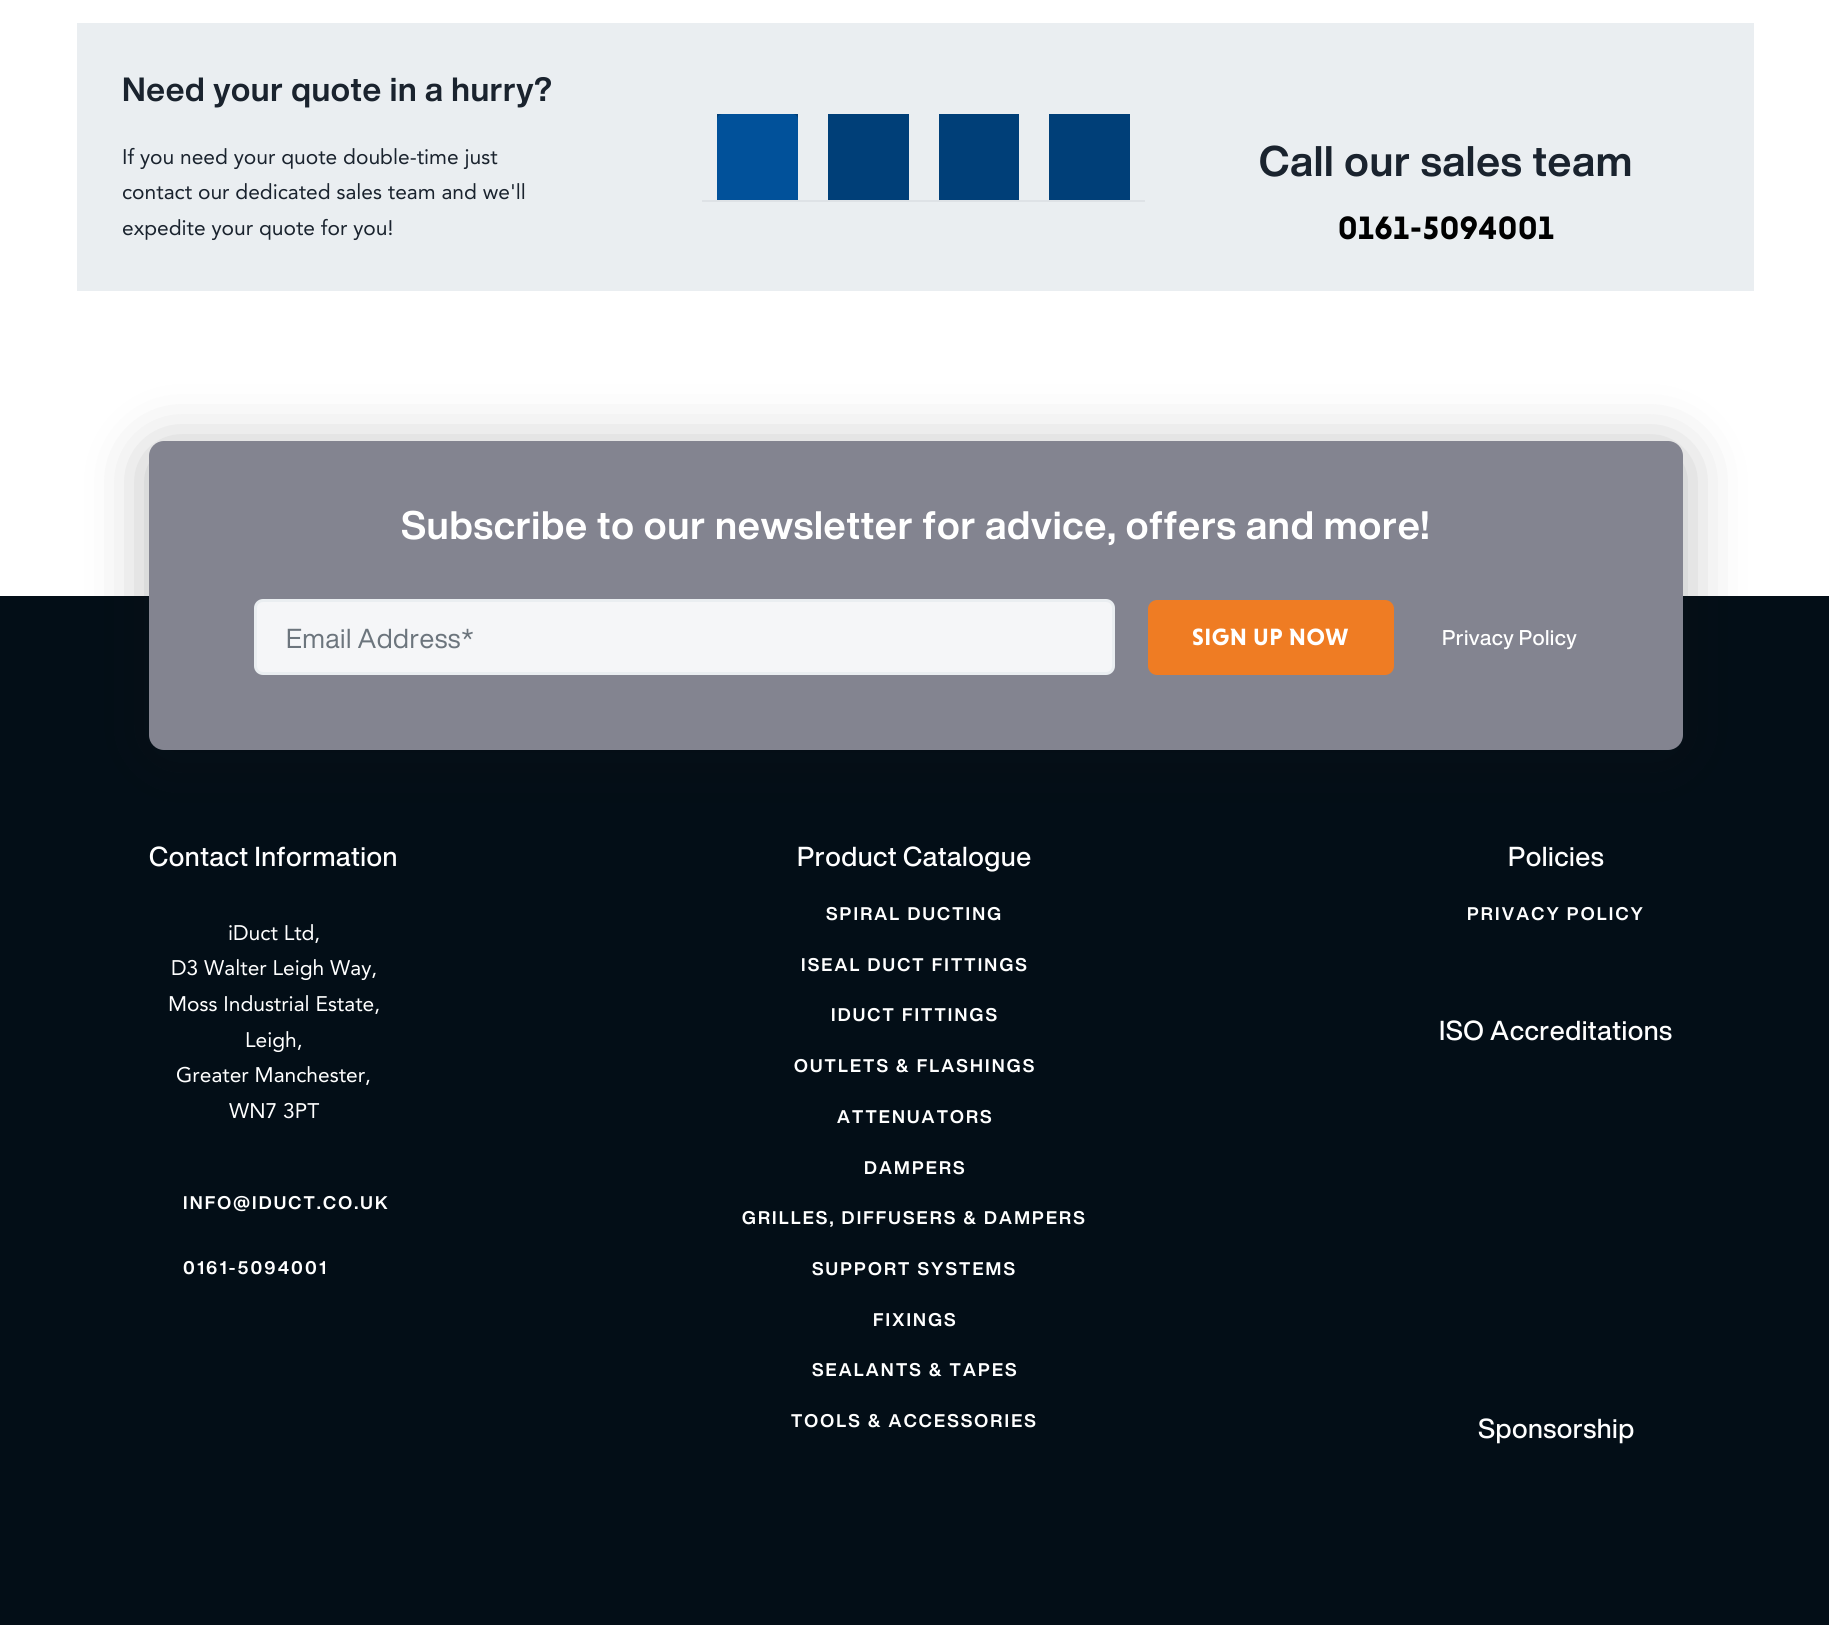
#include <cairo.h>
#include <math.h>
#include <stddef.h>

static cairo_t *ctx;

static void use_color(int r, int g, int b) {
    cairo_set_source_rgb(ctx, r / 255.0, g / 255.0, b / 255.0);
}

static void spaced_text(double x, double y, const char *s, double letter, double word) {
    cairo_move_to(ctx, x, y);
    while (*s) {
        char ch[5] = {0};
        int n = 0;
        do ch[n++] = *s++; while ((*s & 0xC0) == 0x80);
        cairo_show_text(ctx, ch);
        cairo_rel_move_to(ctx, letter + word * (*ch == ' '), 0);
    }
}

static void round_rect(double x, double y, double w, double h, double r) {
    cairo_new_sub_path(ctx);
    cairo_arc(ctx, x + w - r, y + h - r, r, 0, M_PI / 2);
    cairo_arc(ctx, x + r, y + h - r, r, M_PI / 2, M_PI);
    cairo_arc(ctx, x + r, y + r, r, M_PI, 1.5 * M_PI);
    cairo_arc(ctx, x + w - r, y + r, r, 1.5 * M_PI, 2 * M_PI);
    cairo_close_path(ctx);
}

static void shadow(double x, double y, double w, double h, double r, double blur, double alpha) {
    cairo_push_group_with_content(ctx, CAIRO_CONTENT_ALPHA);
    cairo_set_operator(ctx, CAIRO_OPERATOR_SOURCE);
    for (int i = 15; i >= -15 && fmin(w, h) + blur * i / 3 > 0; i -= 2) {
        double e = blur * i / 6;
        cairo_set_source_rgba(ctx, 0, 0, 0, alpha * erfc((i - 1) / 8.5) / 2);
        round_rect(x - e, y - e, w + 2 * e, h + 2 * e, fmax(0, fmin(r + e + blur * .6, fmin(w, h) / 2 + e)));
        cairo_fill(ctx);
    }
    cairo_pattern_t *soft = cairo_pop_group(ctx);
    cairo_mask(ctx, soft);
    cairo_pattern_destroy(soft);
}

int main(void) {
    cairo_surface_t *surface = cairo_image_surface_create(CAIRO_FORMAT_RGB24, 1829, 1640);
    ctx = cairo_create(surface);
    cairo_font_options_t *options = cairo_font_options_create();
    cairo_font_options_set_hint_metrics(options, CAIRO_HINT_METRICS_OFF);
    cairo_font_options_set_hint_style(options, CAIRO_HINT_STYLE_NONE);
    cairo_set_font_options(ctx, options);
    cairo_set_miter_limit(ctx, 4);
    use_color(255, 255, 255);
    cairo_paint(ctx);
    use_color(234, 238, 241);
    cairo_rectangle(ctx, 77, 23, 1677, 268);
    cairo_fill(ctx);
    cairo_select_font_face(ctx, "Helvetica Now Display", CAIRO_FONT_SLANT_NORMAL, CAIRO_FONT_WEIGHT_BOLD);
    cairo_set_font_size(ctx, 33);
    use_color(26, 35, 46);
    spaced_text(122, 101, "Need your quote in a hurry?", 0.65, 0);
    cairo_select_font_face(ctx, "Avenir", CAIRO_FONT_SLANT_NORMAL, CAIRO_FONT_WEIGHT_NORMAL);
    cairo_set_font_size(ctx, 21);
    cairo_move_to(ctx, 122, 164);
    cairo_show_text(ctx, "If you need your quote double-time just");
    cairo_move_to(ctx, 122, 199);
    cairo_show_text(ctx, "contact our dedicated sales team and we'll");
    cairo_move_to(ctx, 122, 235);
    cairo_show_text(ctx, "expedite your quote for you!");
    use_color(222, 226, 230);
    cairo_rectangle(ctx, 702, 200, 443, 2);
    cairo_fill(ctx);
    use_color(0, 63, 120);
    cairo_rectangle(ctx, 717, 114, 81, 6);
    cairo_fill(ctx);
    use_color(1, 81, 154);
    cairo_new_path(ctx);
    cairo_move_to(ctx, 723, 114);
    cairo_line_to(ctx, 792, 114);
    cairo_curve_to(ctx, 795.5, 114, 798, 116.5, 798, 120);
    cairo_line_to(ctx, 798, 200);
    cairo_line_to(ctx, 717, 200);
    cairo_line_to(ctx, 717, 120);
    cairo_curve_to(ctx, 717, 116.5, 719.5, 114, 723, 114);
    cairo_close_path(ctx);
    cairo_fill(ctx);
    use_color(0, 63, 120);
    cairo_rectangle(ctx, 828, 114, 81, 86);
    cairo_fill(ctx);
    cairo_rectangle(ctx, 939, 114, 80, 86);
    cairo_fill(ctx);
    cairo_rectangle(ctx, 1049, 114, 81, 86);
    cairo_fill(ctx);
    cairo_select_font_face(ctx, "Helvetica Now Display", CAIRO_FONT_SLANT_NORMAL, CAIRO_FONT_WEIGHT_BOLD);
    cairo_set_font_size(ctx, 42);
    use_color(26, 35, 46);
    spaced_text(1259, 176, "Call our sales team", 0.8, 0);
    cairo_select_font_face(ctx, "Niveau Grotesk", CAIRO_FONT_SLANT_NORMAL, CAIRO_FONT_WEIGHT_BOLD);
    cairo_set_font_size(ctx, 33);
    use_color(0, 0, 0);
    spaced_text(1338, 239, "0161-5094001", 0.65, 0);
    use_color(3, 14, 23);
    cairo_rectangle(ctx, 0, 596, 1829, 1029);
    cairo_fill(ctx);
    use_color(16, 18, 18);
    shadow(149, 449, 1534, 309, 15, 30, 0.3);
    use_color(131, 132, 144);
    round_rect(149, 441, 1534, 309, 15);
    cairo_fill(ctx);
    cairo_select_font_face(ctx, "Helvetica Now Display", CAIRO_FONT_SLANT_NORMAL, CAIRO_FONT_WEIGHT_BOLD);
    cairo_set_font_size(ctx, 39);
    use_color(255, 255, 255);
    spaced_text(401, 539, "Subscribe to our newsletter for advice, offers and more!", 0.78, 0);
    use_color(245, 246, 248);
    round_rect(255.5, 600.5, 858, 73, 7.5);
    cairo_fill_preserve(ctx);
    use_color(234, 238, 241);
    cairo_set_line_width(ctx, 3);
    cairo_stroke(ctx);
    cairo_select_font_face(ctx, "Helvetica Now Display", CAIRO_FONT_SLANT_NORMAL, CAIRO_FONT_WEIGHT_NORMAL);
    cairo_set_font_size(ctx, 27);
    use_color(108, 117, 125);
    spaced_text(286, 648, "Email Address*", 0.5, 0);
    use_color(239, 124, 35);
    round_rect(1148, 600, 246, 75, 9);
    cairo_fill(ctx);
    cairo_select_font_face(ctx, "Niveau Grotesk", CAIRO_FONT_SLANT_NORMAL, CAIRO_FONT_WEIGHT_BOLD);
    cairo_set_font_size(ctx, 24);
    use_color(255, 255, 255);
    spaced_text(1192, 645, "SIGN UP NOW", 0.5, 0);
    cairo_select_font_face(ctx, "Helvetica Now Display Medium", CAIRO_FONT_SLANT_NORMAL, CAIRO_FONT_WEIGHT_NORMAL);
    cairo_set_font_size(ctx, 21);
    spaced_text(1442, 645, "Privacy Policy", 0.4, 0);
    cairo_set_font_size(ctx, 27);
    spaced_text(149, 866, "Contact Information", 0.5, 0);
    cairo_select_font_face(ctx, "Avenir", CAIRO_FONT_SLANT_NORMAL, CAIRO_FONT_WEIGHT_NORMAL);
    cairo_set_font_size(ctx, 21);
    cairo_move_to(ctx, 228, 940);
    cairo_show_text(ctx, "iDuct Ltd,");
    cairo_move_to(ctx, 171, 975);
    cairo_show_text(ctx, "D3 Walter Leigh Way,");
    cairo_move_to(ctx, 168, 1011);
    cairo_show_text(ctx, "Moss Industrial Estate,");
    cairo_move_to(ctx, 245, 1047);
    cairo_show_text(ctx, "Leigh,");
    cairo_move_to(ctx, 176, 1082);
    cairo_show_text(ctx, "Greater Manchester,");
    cairo_move_to(ctx, 229, 1118);
    cairo_show_text(ctx, "WN7 3PT");
    cairo_select_font_face(ctx, "Helvetica Now Display", CAIRO_FONT_SLANT_NORMAL, CAIRO_FONT_WEIGHT_BOLD);
    cairo_set_font_size(ctx, 18);
    spaced_text(183, 1209, "INFO@IDUCT.CO.UK", 2.15, 0);
    spaced_text(183, 1274, "0161-5094001", 2.15, 0);
    cairo_select_font_face(ctx, "Helvetica Now Display Medium", CAIRO_FONT_SLANT_NORMAL, CAIRO_FONT_WEIGHT_NORMAL);
    cairo_set_font_size(ctx, 27);
    spaced_text(797, 866, "Product Catalogue", 0.5, 0);
    cairo_select_font_face(ctx, "Helvetica Now Display", CAIRO_FONT_SLANT_NORMAL, CAIRO_FONT_WEIGHT_BOLD);
    cairo_set_font_size(ctx, 18);
    spaced_text(826, 920, "SPIRAL DUCTING", 2.15, 0);
    spaced_text(801, 971, "ISEAL DUCT FITTINGS", 2.15, 0);
    spaced_text(831, 1021, "IDUCT FITTINGS", 2.15, 0);
    spaced_text(794, 1072, "OUTLETS & FLASHINGS", 2.15, 0);
    spaced_text(837, 1123, "ATTENUATORS", 2.15, 0);
    spaced_text(864, 1174, "DAMPERS", 2.15, 0);
    spaced_text(742, 1224, "GRILLES, DIFFUSERS & DAMPERS", 2.15, 0);
    spaced_text(812, 1275, "SUPPORT SYSTEMS", 2.15, 0);
    spaced_text(873, 1326, "FIXINGS", 2.15, 0);
    spaced_text(812, 1376, "SEALANTS & TAPES", 2.15, 0);
    spaced_text(791, 1427, "TOOLS & ACCESSORIES", 2.15, 0);
    cairo_select_font_face(ctx, "Helvetica Now Display Medium", CAIRO_FONT_SLANT_NORMAL, CAIRO_FONT_WEIGHT_NORMAL);
    cairo_set_font_size(ctx, 27);
    spaced_text(1508, 866, "Policies", 0.5, 0);
    cairo_select_font_face(ctx, "Helvetica Now Display", CAIRO_FONT_SLANT_NORMAL, CAIRO_FONT_WEIGHT_BOLD);
    cairo_set_font_size(ctx, 18);
    spaced_text(1467, 920, "PRIVACY POLICY", 2.15, 0);
    cairo_select_font_face(ctx, "Helvetica Now Display Medium", CAIRO_FONT_SLANT_NORMAL, CAIRO_FONT_WEIGHT_NORMAL);
    cairo_set_font_size(ctx, 27);
    spaced_text(1439, 1040, "ISO Accreditations", 0.5, 0);
    spaced_text(1478, 1438, "Sponsorship", 0.5, 0);
    cairo_surface_write_to_png(surface, "result.png");
    cairo_font_options_destroy(options);
    cairo_destroy(ctx);
    cairo_surface_destroy(surface);
    return 0;
}
